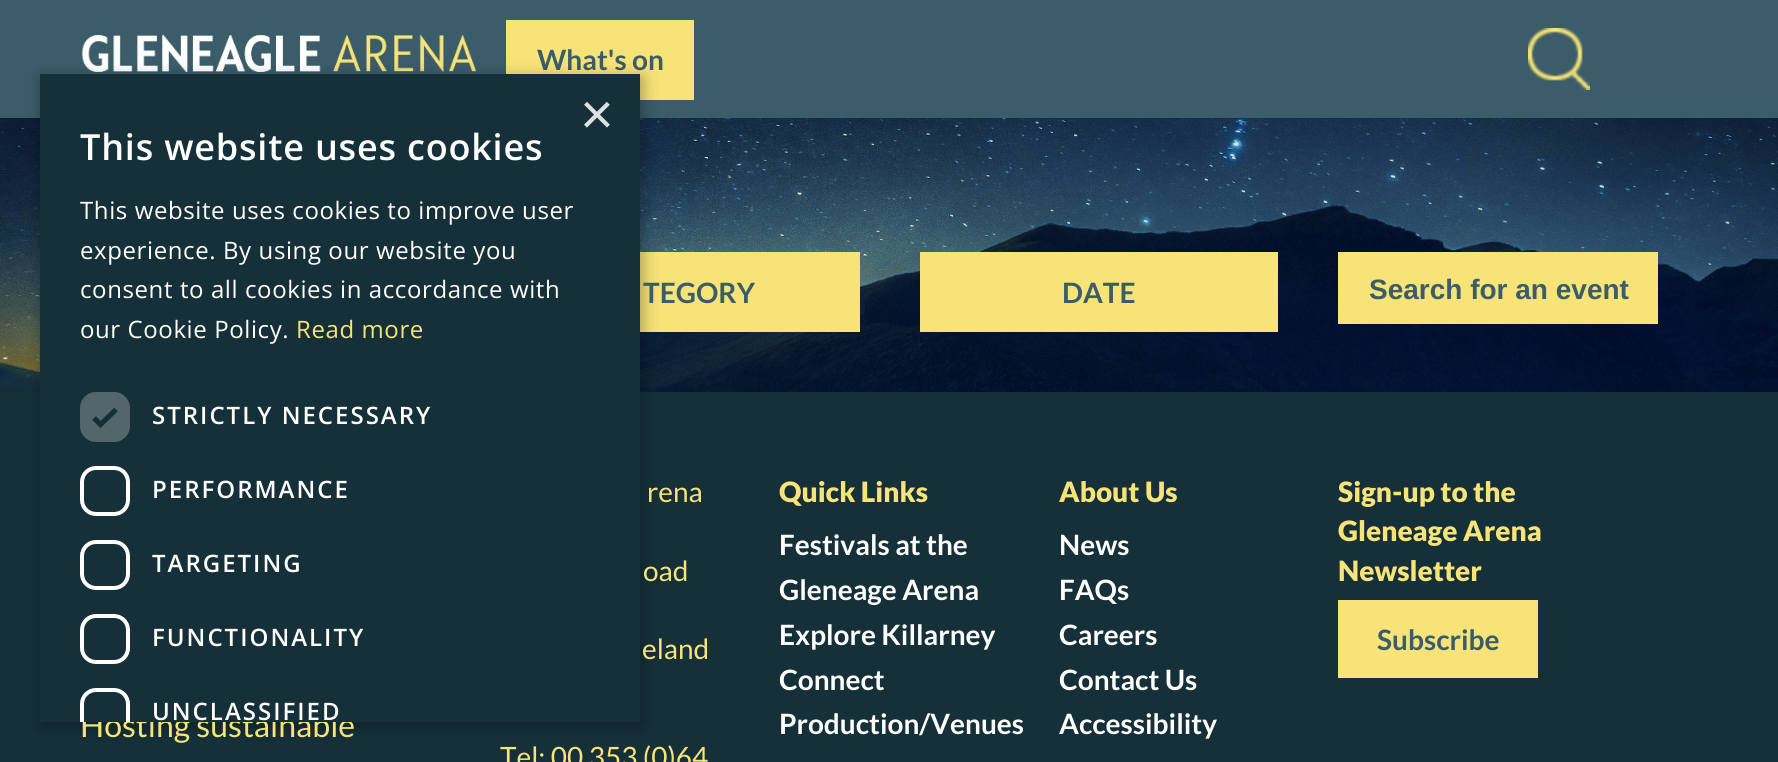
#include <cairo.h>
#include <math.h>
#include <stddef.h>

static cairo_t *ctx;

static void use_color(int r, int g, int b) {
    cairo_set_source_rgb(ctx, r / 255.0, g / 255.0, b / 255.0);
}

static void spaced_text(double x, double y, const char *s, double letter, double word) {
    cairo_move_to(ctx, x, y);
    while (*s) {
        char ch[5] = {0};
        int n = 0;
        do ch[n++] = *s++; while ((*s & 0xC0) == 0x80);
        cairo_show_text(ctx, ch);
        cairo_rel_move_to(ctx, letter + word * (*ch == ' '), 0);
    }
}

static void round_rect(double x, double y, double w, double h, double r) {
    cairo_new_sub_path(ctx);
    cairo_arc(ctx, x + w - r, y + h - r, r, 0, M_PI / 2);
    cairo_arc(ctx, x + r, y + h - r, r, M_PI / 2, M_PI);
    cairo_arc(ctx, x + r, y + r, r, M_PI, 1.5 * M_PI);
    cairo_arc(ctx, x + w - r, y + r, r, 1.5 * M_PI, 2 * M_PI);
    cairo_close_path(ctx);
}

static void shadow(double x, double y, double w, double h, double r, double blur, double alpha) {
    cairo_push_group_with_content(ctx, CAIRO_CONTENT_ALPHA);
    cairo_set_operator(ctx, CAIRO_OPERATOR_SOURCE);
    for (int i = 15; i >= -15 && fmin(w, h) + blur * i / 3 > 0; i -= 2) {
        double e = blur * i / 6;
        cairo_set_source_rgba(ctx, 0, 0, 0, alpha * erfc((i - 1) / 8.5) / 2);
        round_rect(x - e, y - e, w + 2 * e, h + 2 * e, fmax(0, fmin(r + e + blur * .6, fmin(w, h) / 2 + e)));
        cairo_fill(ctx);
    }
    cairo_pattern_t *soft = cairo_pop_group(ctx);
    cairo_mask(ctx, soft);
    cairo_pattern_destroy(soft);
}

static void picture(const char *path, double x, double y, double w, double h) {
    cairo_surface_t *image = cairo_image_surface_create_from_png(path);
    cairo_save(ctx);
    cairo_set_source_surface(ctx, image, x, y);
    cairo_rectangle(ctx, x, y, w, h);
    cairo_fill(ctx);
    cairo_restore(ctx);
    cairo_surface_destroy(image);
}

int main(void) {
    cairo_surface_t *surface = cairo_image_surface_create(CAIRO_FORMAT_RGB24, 1778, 762);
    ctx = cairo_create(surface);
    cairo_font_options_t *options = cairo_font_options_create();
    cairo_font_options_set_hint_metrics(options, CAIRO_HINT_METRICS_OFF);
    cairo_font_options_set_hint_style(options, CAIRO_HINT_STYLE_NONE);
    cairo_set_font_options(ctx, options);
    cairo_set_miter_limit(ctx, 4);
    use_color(59, 92, 105);
    cairo_paint(ctx);
    picture("img1.png", 81, 34, 396, 38);
    use_color(247, 227, 120);
    cairo_rectangle(ctx, 506, 20, 188, 80);
    cairo_fill(ctx);
    cairo_select_font_face(ctx, "Lato", CAIRO_FONT_SLANT_NORMAL, CAIRO_FONT_WEIGHT_BOLD);
    cairo_set_font_size(ctx, 28);
    use_color(59, 92, 105);
    cairo_move_to(ctx, 537, 70);
    cairo_show_text(ctx, "What's on");
    picture("img2.png", 1528, 28, 62, 62);
    picture("img3.png", 0, 118, 1778, 274);
    use_color(247, 227, 120);
    cairo_rectangle(ctx, 640, 252, 220, 80);
    cairo_fill(ctx);
    use_color(21, 48, 57);
    cairo_rectangle(ctx, 0, 392, 1778, 370);
    cairo_fill(ctx);
    use_color(0, 0, 0);
    shadow(42, 78, 600, 648, 0, 8, 0.35);
    cairo_select_font_face(ctx, "Lato", CAIRO_FONT_SLANT_NORMAL, CAIRO_FONT_WEIGHT_NORMAL);
    cairo_set_font_size(ctx, 32);
    use_color(247, 227, 120);
    cairo_move_to(ctx, 80, 737);
    cairo_show_text(ctx, "Hosting sustainable");
    use_color(21, 48, 57);
    cairo_rectangle(ctx, 40, 74, 600, 648);
    cairo_fill(ctx);
    cairo_select_font_face(ctx, "Liberation Sans", CAIRO_FONT_SLANT_NORMAL, CAIRO_FONT_WEIGHT_NORMAL);
    cairo_set_font_size(ctx, 58);
    use_color(220, 224, 225);
    cairo_move_to(ctx, 580, 134);
    cairo_show_text(ctx, "×");
    cairo_select_font_face(ctx, "Open Sans SemiBold", CAIRO_FONT_SLANT_NORMAL, CAIRO_FONT_WEIGHT_NORMAL);
    cairo_set_font_size(ctx, 36);
    use_color(255, 255, 255);
    spaced_text(80, 160, "This website uses cookies", 0.8, 0);
    cairo_select_font_face(ctx, "Open Sans", CAIRO_FONT_SLANT_NORMAL, CAIRO_FONT_WEIGHT_NORMAL);
    cairo_set_font_size(ctx, 24);
    spaced_text(80, 219, "This website uses cookies to improve user", 0.6, 0);
    spaced_text(80, 259, "experience. By using our website you", 0.6, 0);
    spaced_text(80, 298, "consent to all cookies in accordance with", 0.6, 0);
    spaced_text(80, 338, "our Cookie Policy.", 0.6, 0);
    use_color(247, 227, 120);
    spaced_text(296, 338, "Read more", 0.6, 0);
    use_color(82, 102, 108);
    round_rect(80, 392, 50, 50, 16);
    cairo_fill(ctx);
    cairo_new_path(ctx);
    cairo_move_to(ctx, 94, 418);
    cairo_line_to(ctx, 100.5, 424.5);
    cairo_line_to(ctx, 116, 409.5);
    use_color(21, 48, 57);
    cairo_set_line_width(ctx, 5.2);
    cairo_stroke(ctx);
    cairo_select_font_face(ctx, "Open Sans SemiBold", CAIRO_FONT_SLANT_NORMAL, CAIRO_FONT_WEIGHT_NORMAL);
    use_color(255, 255, 255);
    spaced_text(152, 424, "STRICTLY NECESSARY", 2, 0);
    round_rect(82, 468, 46, 46, 14);
    cairo_set_line_width(ctx, 4);
    cairo_stroke(ctx);
    spaced_text(152, 498, "PERFORMANCE", 2, 0);
    round_rect(82, 542, 46, 46, 14);
    cairo_stroke(ctx);
    spaced_text(152, 572, "TARGETING", 2, 0);
    round_rect(82, 616, 46, 46, 14);
    cairo_stroke(ctx);
    spaced_text(152, 646, "FUNCTIONALITY", 2, 0);
    cairo_save(ctx);
    cairo_rectangle(ctx, 40, 74, 600, 648);
    cairo_clip(ctx);
    round_rect(82, 690, 46, 46, 14);
    cairo_stroke(ctx);
    cairo_restore(ctx);
    spaced_text(152, 720, "UNCLASSIFIED", 2, 0);
    cairo_select_font_face(ctx, "Lato", CAIRO_FONT_SLANT_NORMAL, CAIRO_FONT_WEIGHT_BOLD);
    cairo_set_font_size(ctx, 28);
    use_color(59, 92, 105);
    cairo_move_to(ctx, 643, 303);
    cairo_show_text(ctx, "TEGORY");
    use_color(247, 227, 120);
    cairo_rectangle(ctx, 920, 252, 358, 80);
    cairo_fill(ctx);
    use_color(59, 92, 105);
    cairo_move_to(ctx, 1062, 303);
    cairo_show_text(ctx, "DATE");
    use_color(247, 227, 120);
    cairo_rectangle(ctx, 1338, 252, 320, 72);
    cairo_fill(ctx);
    cairo_select_font_face(ctx, "Liberation Sans", CAIRO_FONT_SLANT_NORMAL, CAIRO_FONT_WEIGHT_BOLD);
    use_color(59, 92, 105);
    cairo_move_to(ctx, 1369, 299);
    cairo_show_text(ctx, "Search for an event");
    cairo_select_font_face(ctx, "Lato", CAIRO_FONT_SLANT_NORMAL, CAIRO_FONT_WEIGHT_NORMAL);
    use_color(247, 227, 120);
    cairo_move_to(ctx, 647, 502);
    cairo_show_text(ctx, "rena");
    cairo_move_to(ctx, 643, 581);
    cairo_show_text(ctx, "oad");
    cairo_move_to(ctx, 642, 659);
    cairo_show_text(ctx, "eland");
    cairo_move_to(ctx, 500, 767);
    cairo_show_text(ctx, "Tel: 00 353 (0)64");
    cairo_select_font_face(ctx, "Lato Black", CAIRO_FONT_SLANT_NORMAL, CAIRO_FONT_WEIGHT_NORMAL);
    cairo_move_to(ctx, 779, 502);
    cairo_show_text(ctx, "Quick Links");
    cairo_select_font_face(ctx, "Lato", CAIRO_FONT_SLANT_NORMAL, CAIRO_FONT_WEIGHT_BOLD);
    use_color(255, 255, 255);
    cairo_move_to(ctx, 779, 555);
    cairo_show_text(ctx, "Festivals at the");
    cairo_move_to(ctx, 779, 600);
    cairo_show_text(ctx, "Gleneage Arena");
    cairo_move_to(ctx, 779, 645);
    cairo_show_text(ctx, "Explore Killarney");
    cairo_move_to(ctx, 779, 690);
    cairo_show_text(ctx, "Connect");
    cairo_move_to(ctx, 779, 734);
    cairo_show_text(ctx, "Production/Venues");
    cairo_select_font_face(ctx, "Lato Black", CAIRO_FONT_SLANT_NORMAL, CAIRO_FONT_WEIGHT_NORMAL);
    use_color(247, 227, 120);
    cairo_move_to(ctx, 1059, 502);
    cairo_show_text(ctx, "About Us");
    cairo_select_font_face(ctx, "Lato", CAIRO_FONT_SLANT_NORMAL, CAIRO_FONT_WEIGHT_BOLD);
    use_color(255, 255, 255);
    cairo_move_to(ctx, 1059, 555);
    cairo_show_text(ctx, "News");
    cairo_move_to(ctx, 1059, 600);
    cairo_show_text(ctx, "FAQs");
    cairo_move_to(ctx, 1059, 645);
    cairo_show_text(ctx, "Careers");
    cairo_move_to(ctx, 1059, 690);
    cairo_show_text(ctx, "Contact Us");
    cairo_move_to(ctx, 1059, 734);
    cairo_show_text(ctx, "Accessibility");
    cairo_select_font_face(ctx, "Lato Black", CAIRO_FONT_SLANT_NORMAL, CAIRO_FONT_WEIGHT_NORMAL);
    use_color(247, 227, 120);
    cairo_move_to(ctx, 1338, 502);
    cairo_show_text(ctx, "Sign-up to the");
    cairo_move_to(ctx, 1338, 541);
    cairo_show_text(ctx, "Gleneage Arena");
    cairo_move_to(ctx, 1338, 581);
    cairo_show_text(ctx, "Newsletter");
    cairo_rectangle(ctx, 1338, 600, 200, 78);
    cairo_fill(ctx);
    cairo_select_font_face(ctx, "Lato", CAIRO_FONT_SLANT_NORMAL, CAIRO_FONT_WEIGHT_BOLD);
    use_color(59, 92, 105);
    cairo_move_to(ctx, 1377, 650);
    cairo_show_text(ctx, "Subscribe");
    cairo_surface_write_to_png(surface, "result.png");
    cairo_font_options_destroy(options);
    cairo_destroy(ctx);
    cairo_surface_destroy(surface);
    return 0;
}
